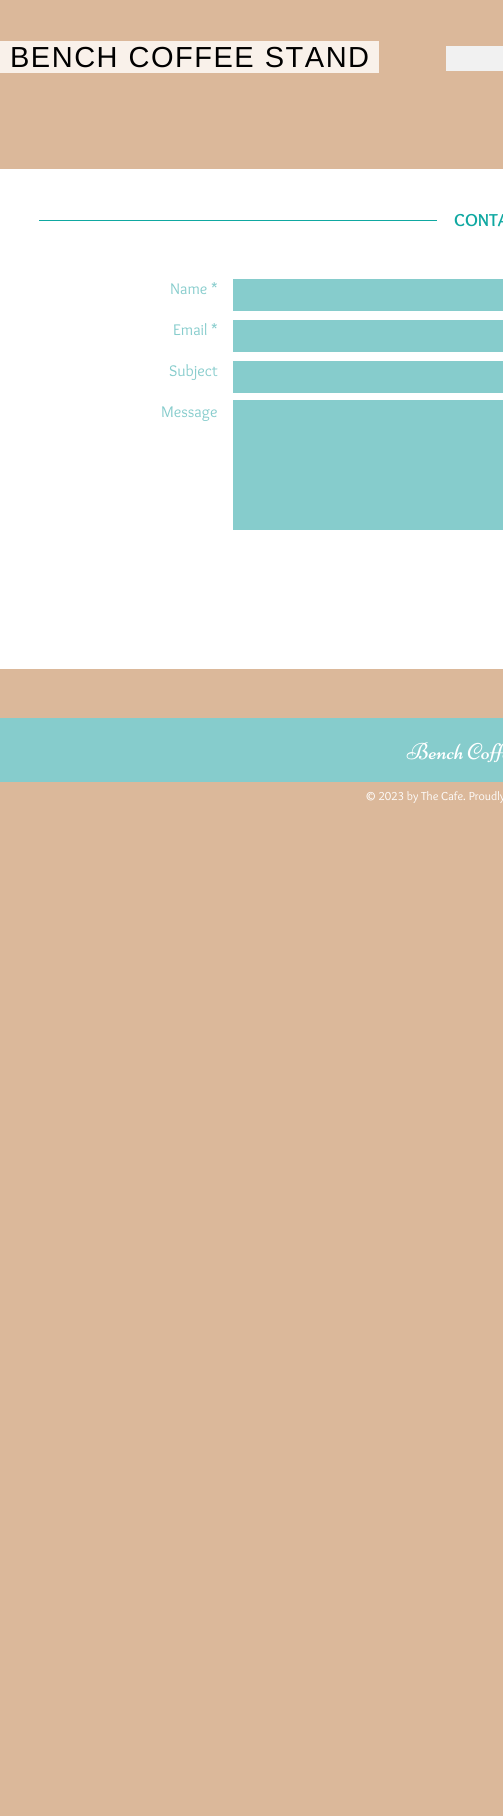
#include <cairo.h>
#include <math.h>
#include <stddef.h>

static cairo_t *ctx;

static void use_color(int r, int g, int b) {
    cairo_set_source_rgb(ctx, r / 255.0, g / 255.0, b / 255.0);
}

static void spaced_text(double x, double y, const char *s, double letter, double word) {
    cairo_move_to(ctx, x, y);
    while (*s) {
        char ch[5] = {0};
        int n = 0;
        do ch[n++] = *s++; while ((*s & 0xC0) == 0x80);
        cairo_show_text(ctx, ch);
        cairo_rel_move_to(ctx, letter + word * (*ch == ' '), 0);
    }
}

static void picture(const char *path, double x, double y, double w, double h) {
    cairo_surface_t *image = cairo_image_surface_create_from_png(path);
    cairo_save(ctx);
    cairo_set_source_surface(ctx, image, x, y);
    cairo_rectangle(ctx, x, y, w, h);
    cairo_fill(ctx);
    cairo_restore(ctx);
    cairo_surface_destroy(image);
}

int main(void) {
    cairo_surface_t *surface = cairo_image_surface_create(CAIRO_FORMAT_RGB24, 503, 1816);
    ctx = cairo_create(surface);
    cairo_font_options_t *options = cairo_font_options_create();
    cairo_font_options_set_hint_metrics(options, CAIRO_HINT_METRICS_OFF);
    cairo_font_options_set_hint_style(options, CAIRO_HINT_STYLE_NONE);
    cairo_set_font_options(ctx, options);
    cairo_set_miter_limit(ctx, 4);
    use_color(219, 184, 154);
    cairo_paint(ctx);
    use_color(249, 241, 234);
    cairo_rectangle(ctx, 0, 41, 379, 32);
    cairo_fill(ctx);
    cairo_select_font_face(ctx, "Liberation Sans", CAIRO_FONT_SLANT_NORMAL, CAIRO_FONT_WEIGHT_NORMAL);
    cairo_set_font_size(ctx, 29);
    use_color(0, 0, 0);
    spaced_text(10, 67, "BENCH COFFEE STAND", 1.5, 0);
    use_color(241, 241, 241);
    cairo_rectangle(ctx, 446, 46, 57, 25);
    cairo_fill(ctx);
    use_color(255, 255, 255);
    cairo_rectangle(ctx, 0, 169, 503, 500);
    cairo_fill(ctx);
    use_color(15, 168, 161);
    cairo_rectangle(ctx, 39, 220, 398, 1);
    cairo_fill(ctx);
    cairo_select_font_face(ctx, "Overlock", CAIRO_FONT_SLANT_NORMAL, CAIRO_FONT_WEIGHT_BOLD);
    cairo_set_font_size(ctx, 18);
    cairo_move_to(ctx, 454, 226);
    cairo_show_text(ctx, "CONTA");
    cairo_select_font_face(ctx, "Overlock", CAIRO_FONT_SLANT_NORMAL, CAIRO_FONT_WEIGHT_NORMAL);
    cairo_set_font_size(ctx, 16);
    use_color(134, 204, 204);
    cairo_move_to(ctx, 170, 294);
    cairo_show_text(ctx, "Name *");
    cairo_rectangle(ctx, 233, 279, 270, 32);
    cairo_fill(ctx);
    cairo_move_to(ctx, 173, 335);
    cairo_show_text(ctx, "Email *");
    cairo_rectangle(ctx, 233, 320, 270, 32);
    cairo_fill(ctx);
    cairo_move_to(ctx, 169, 376);
    cairo_show_text(ctx, "Subject");
    cairo_rectangle(ctx, 233, 361, 270, 32);
    cairo_fill(ctx);
    cairo_move_to(ctx, 161, 417);
    cairo_show_text(ctx, "Message");
    cairo_rectangle(ctx, 233, 400, 270, 130);
    cairo_fill(ctx);
    cairo_rectangle(ctx, 0, 718, 503, 64);
    cairo_fill(ctx);
    picture("img1.png", 406, 742, 97, 21);
    cairo_set_font_size(ctx, 12);
    use_color(255, 255, 255);
    cairo_move_to(ctx, 365, 800);
    cairo_show_text(ctx, "© 2023 by The Cafe. Proudly");
    cairo_surface_write_to_png(surface, "result.png");
    cairo_font_options_destroy(options);
    cairo_destroy(ctx);
    cairo_surface_destroy(surface);
    return 0;
}
